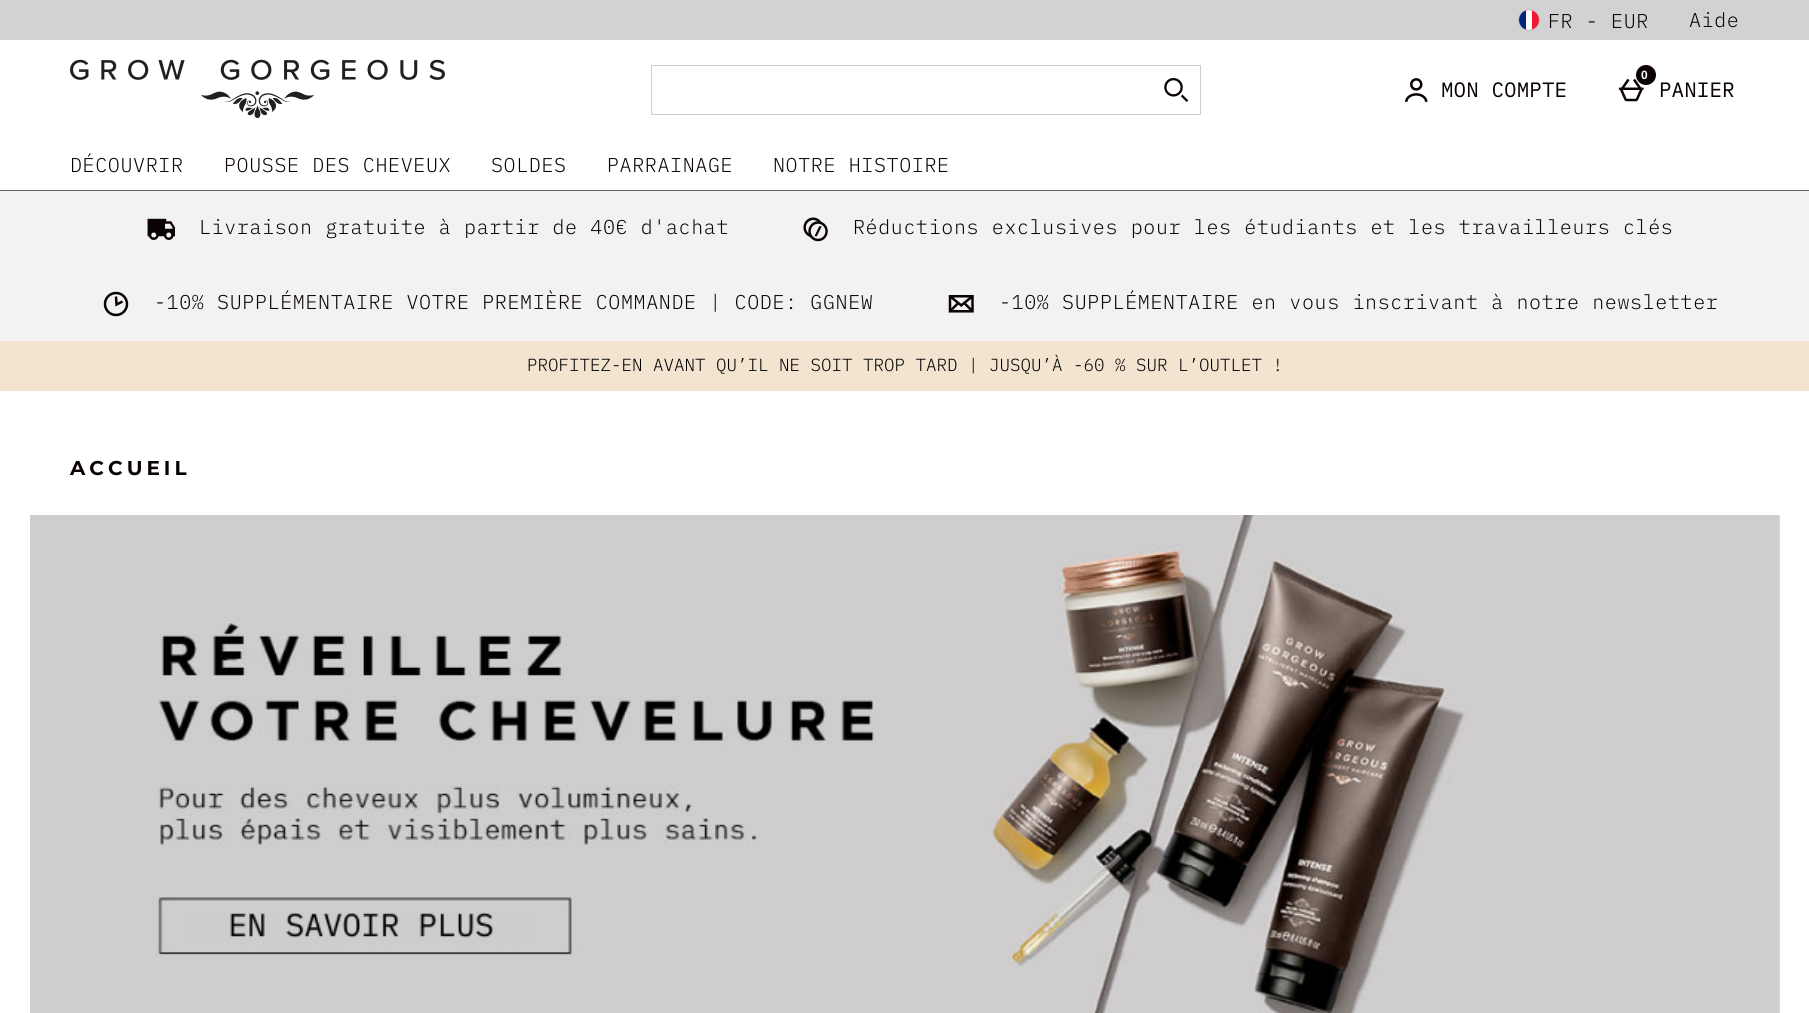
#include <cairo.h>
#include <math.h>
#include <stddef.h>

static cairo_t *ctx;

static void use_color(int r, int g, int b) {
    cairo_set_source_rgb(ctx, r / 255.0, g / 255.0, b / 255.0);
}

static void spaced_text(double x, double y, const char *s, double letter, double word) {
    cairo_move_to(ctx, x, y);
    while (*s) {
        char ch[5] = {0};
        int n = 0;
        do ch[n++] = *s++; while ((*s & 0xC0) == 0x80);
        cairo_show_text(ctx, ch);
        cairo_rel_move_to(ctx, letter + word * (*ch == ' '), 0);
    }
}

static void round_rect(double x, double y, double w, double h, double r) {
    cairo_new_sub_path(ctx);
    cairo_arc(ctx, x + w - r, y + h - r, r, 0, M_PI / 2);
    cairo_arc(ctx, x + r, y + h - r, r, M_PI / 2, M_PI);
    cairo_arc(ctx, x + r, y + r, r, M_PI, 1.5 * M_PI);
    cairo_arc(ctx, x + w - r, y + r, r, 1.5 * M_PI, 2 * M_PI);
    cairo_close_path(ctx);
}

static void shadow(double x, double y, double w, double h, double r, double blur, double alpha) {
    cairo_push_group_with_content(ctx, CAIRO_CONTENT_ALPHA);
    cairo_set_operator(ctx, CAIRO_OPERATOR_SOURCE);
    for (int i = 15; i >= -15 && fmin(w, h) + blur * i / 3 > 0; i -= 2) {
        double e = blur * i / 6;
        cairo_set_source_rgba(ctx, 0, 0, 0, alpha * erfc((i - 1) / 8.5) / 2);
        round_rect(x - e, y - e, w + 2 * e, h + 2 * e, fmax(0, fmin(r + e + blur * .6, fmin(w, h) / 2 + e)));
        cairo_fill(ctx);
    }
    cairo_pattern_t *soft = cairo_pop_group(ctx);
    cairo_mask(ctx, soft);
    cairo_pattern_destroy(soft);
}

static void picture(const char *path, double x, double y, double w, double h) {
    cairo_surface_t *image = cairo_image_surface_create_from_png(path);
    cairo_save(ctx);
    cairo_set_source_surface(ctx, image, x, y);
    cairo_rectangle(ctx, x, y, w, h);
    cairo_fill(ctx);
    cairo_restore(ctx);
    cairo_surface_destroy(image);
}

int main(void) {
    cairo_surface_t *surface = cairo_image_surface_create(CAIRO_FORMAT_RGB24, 1809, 1013);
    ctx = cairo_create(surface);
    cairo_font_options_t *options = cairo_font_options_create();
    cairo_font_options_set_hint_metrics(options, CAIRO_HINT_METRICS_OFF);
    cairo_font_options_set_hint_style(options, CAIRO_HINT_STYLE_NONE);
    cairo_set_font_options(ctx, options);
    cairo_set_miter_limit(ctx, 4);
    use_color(255, 255, 255);
    cairo_paint(ctx);
    use_color(99, 101, 106);
    cairo_rectangle(ctx, 0, 190, 1809, 1);
    cairo_fill(ctx);
    use_color(210, 210, 210);
    cairo_rectangle(ctx, 0, 0, 1809, 40);
    cairo_fill(ctx);
    use_color(0, 0, 0);
    shadow(1519, 10, 20, 20, 10, 0.5, 0.5);
    use_color(255, 255, 255);
    cairo_arc(ctx, 1529, 20, 10, 0, 2 * M_PI);
    cairo_fill(ctx);
    cairo_save(ctx);
    round_rect(1519, 10, 20, 20, 10);
    cairo_clip(ctx);
    use_color(0, 38, 127);
    cairo_rectangle(ctx, 1519, 10, 7, 20);
    cairo_fill(ctx);
    use_color(243, 24, 48);
    cairo_rectangle(ctx, 1532, 10, 7, 20);
    cairo_fill(ctx);
    cairo_restore(ctx);
    cairo_select_font_face(ctx, "IBM Plex Mono Light", CAIRO_FONT_SLANT_NORMAL, CAIRO_FONT_WEIGHT_NORMAL);
    cairo_set_font_size(ctx, 20);
    use_color(10, 2, 3);
    spaced_text(1548, 28, "FR - EUR", 0.62, 0);
    spaced_text(1689, 27, "Aide", 0.62, 0);
    picture("img1.png", 70, 59, 375, 60);
    cairo_rectangle(ctx, 651.5, 65.5, 549, 49);
    use_color(206, 206, 206);
    cairo_set_line_width(ctx, 1);
    cairo_stroke(ctx);
    picture("img2.png", 1164, 78, 25, 24);
    picture("img3.png", 1405, 78, 23, 24);
    cairo_select_font_face(ctx, "IBM Plex Mono", CAIRO_FONT_SLANT_NORMAL, CAIRO_FONT_WEIGHT_BOLD);
    use_color(10, 2, 3);
    spaced_text(1441, 97, "MON COMPTE", 0.62, 0);
    picture("img4.png", 1618, 78, 26, 24);
    cairo_arc(ctx, 1646, 75, 10, 0, 2 * M_PI);
    cairo_fill(ctx);
    cairo_select_font_face(ctx, "Liberation Sans", CAIRO_FONT_SLANT_NORMAL, CAIRO_FONT_WEIGHT_BOLD);
    cairo_set_font_size(ctx, 12);
    use_color(255, 255, 255);
    spaced_text(1641, 79, "0", 4, 0);
    cairo_select_font_face(ctx, "IBM Plex Mono", CAIRO_FONT_SLANT_NORMAL, CAIRO_FONT_WEIGHT_BOLD);
    cairo_set_font_size(ctx, 20);
    use_color(10, 2, 3);
    spaced_text(1659, 97, "PANIER", 0.62, 0);
    cairo_select_font_face(ctx, "IBM Plex Mono Light", CAIRO_FONT_SLANT_NORMAL, CAIRO_FONT_WEIGHT_NORMAL);
    spaced_text(70, 172, "DÉCOUVRIR", 0.62, 0);
    spaced_text(224, 172, "POUSSE DES CHEVEUX", 0.62, 0);
    spaced_text(491, 172, "SOLDES", 0.62, 0);
    spaced_text(607, 172, "PARRAINAGE", 0.62, 0);
    spaced_text(773, 172, "NOTRE HISTOIRE", 0.62, 0);
    use_color(242, 242, 242);
    cairo_rectangle(ctx, 0, 191, 1809, 150);
    cairo_fill(ctx);
    picture("img5.png", 147, 218, 28, 22);
    use_color(10, 2, 3);
    spaced_text(199, 234, "Livraison gratuite à partir de 40€ d'achat", 0.62, 0);
    picture("img6.png", 803, 217, 25, 25);
    spaced_text(853, 234, "Réductions exclusives pour les étudiants et les travailleurs clés", 0.62, 0);
    cairo_new_path(ctx);
    cairo_arc(ctx, 116, 304, 11, 0, 2 * M_PI);
    cairo_set_line_width(ctx, 2.5);
    cairo_stroke(ctx);
    cairo_new_path(ctx);
    cairo_move_to(ctx, 116, 296.5);
    cairo_line_to(ctx, 116.5, 304.5);
    cairo_line_to(ctx, 122.5, 301.5);
    cairo_stroke(ctx);
    spaced_text(154, 309, "-10% SUPPLÉMENTAIRE VOTRE PREMIÈRE COMMANDE | CODE: GGNEW", 0.62, 0);
    picture("img7.png", 948, 295, 26, 18);
    spaced_text(999, 309, "-10% SUPPLÉMENTAIRE en vous inscrivant à notre newsletter", 0.62, 0);
    use_color(242, 228, 207);
    cairo_rectangle(ctx, 0, 341, 1809, 50);
    cairo_fill(ctx);
    cairo_set_font_size(ctx, 17.5);
    use_color(0, 0, 0);
    cairo_move_to(ctx, 527, 371);
    cairo_show_text(ctx, "PROFITEZ-EN AVANT QU’IL NE SOIT TROP TARD | JUSQU’À -60 % SUR L’OUTLET !");
    cairo_select_font_face(ctx, "Montserrat", CAIRO_FONT_SLANT_NORMAL, CAIRO_FONT_WEIGHT_BOLD);
    cairo_set_font_size(ctx, 20);
    use_color(10, 2, 3);
    spaced_text(70, 475, "ACCUEIL", 4, 0);
    picture("img8.png", 30, 515, 1750, 498);
    cairo_surface_write_to_png(surface, "result.png");
    cairo_font_options_destroy(options);
    cairo_destroy(ctx);
    cairo_surface_destroy(surface);
    return 0;
}
